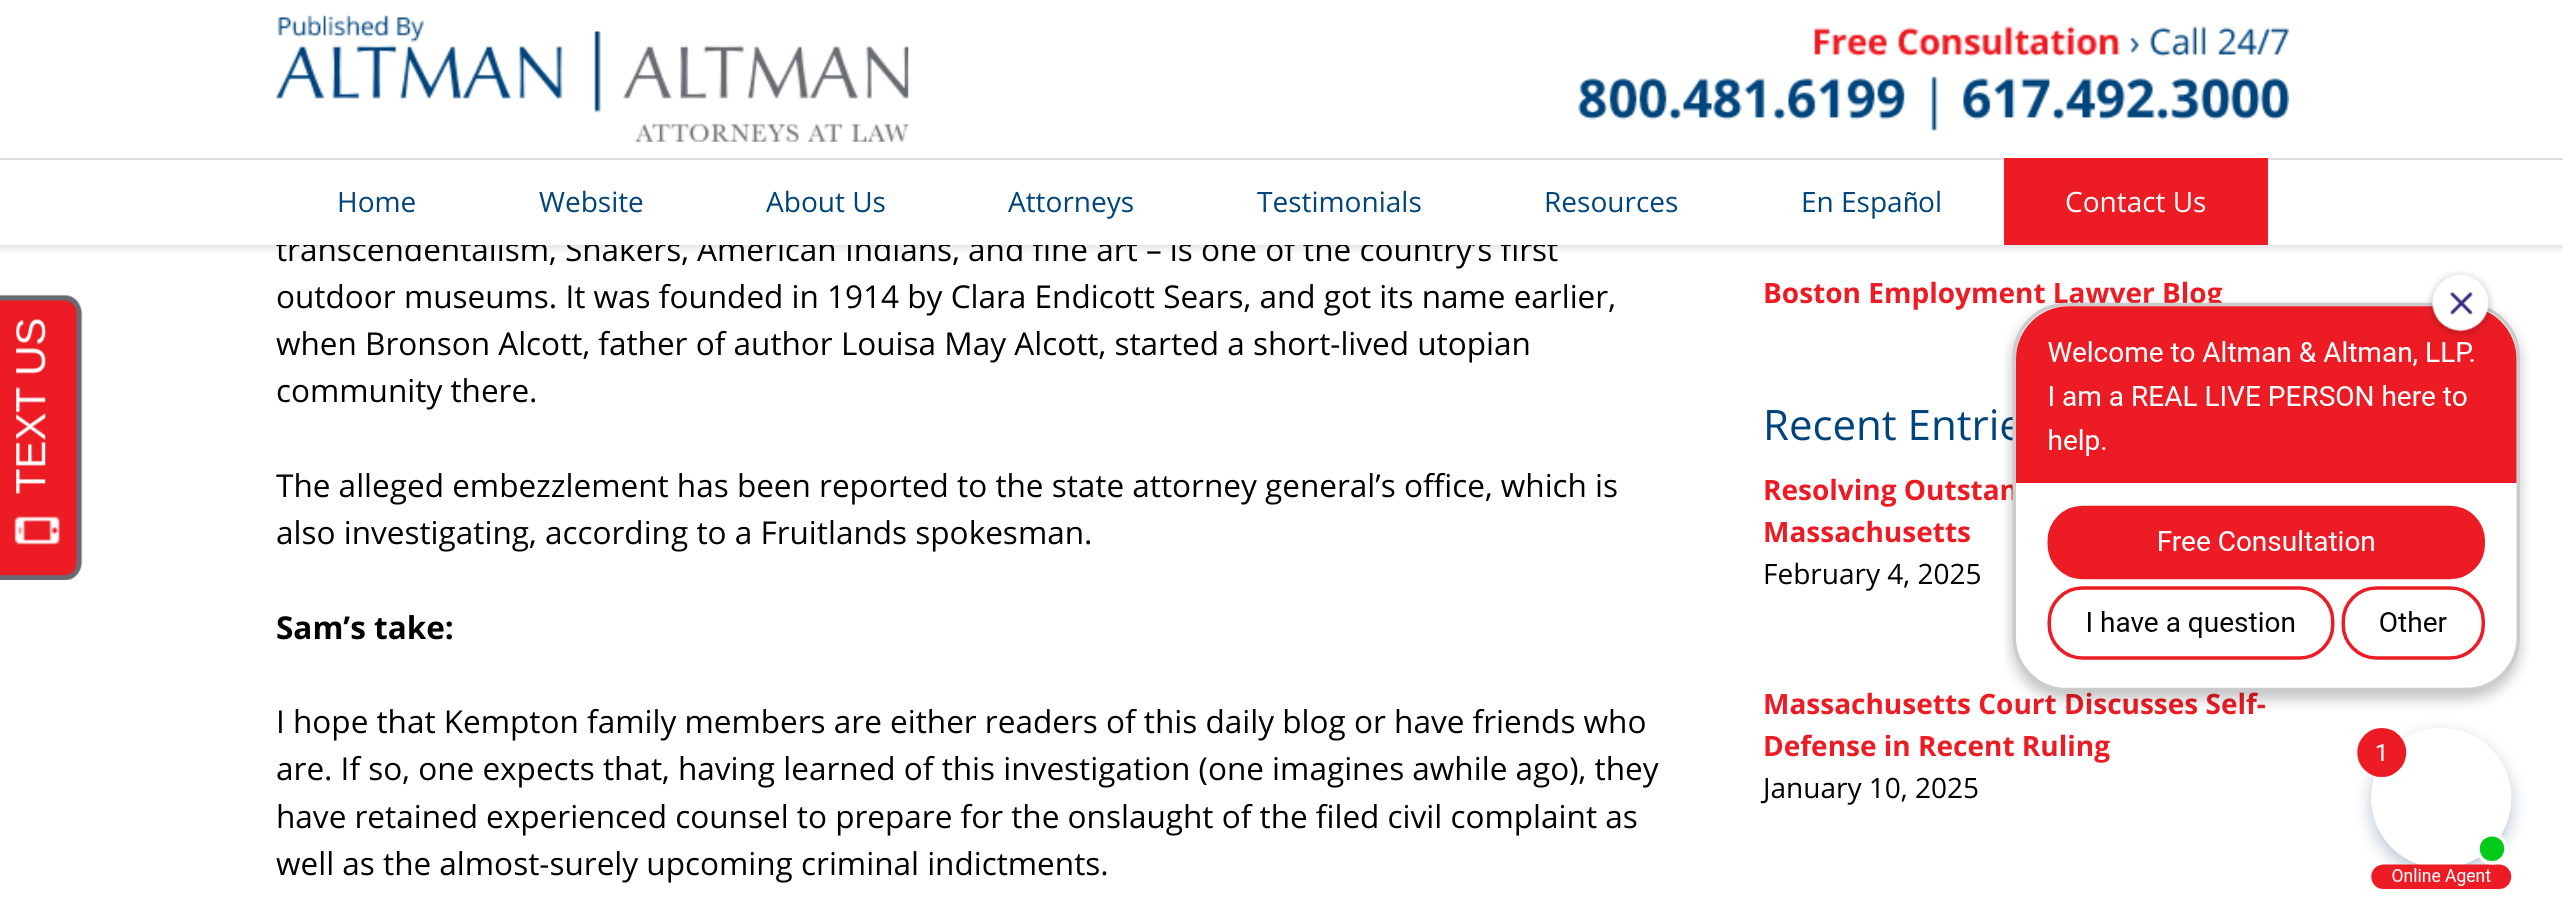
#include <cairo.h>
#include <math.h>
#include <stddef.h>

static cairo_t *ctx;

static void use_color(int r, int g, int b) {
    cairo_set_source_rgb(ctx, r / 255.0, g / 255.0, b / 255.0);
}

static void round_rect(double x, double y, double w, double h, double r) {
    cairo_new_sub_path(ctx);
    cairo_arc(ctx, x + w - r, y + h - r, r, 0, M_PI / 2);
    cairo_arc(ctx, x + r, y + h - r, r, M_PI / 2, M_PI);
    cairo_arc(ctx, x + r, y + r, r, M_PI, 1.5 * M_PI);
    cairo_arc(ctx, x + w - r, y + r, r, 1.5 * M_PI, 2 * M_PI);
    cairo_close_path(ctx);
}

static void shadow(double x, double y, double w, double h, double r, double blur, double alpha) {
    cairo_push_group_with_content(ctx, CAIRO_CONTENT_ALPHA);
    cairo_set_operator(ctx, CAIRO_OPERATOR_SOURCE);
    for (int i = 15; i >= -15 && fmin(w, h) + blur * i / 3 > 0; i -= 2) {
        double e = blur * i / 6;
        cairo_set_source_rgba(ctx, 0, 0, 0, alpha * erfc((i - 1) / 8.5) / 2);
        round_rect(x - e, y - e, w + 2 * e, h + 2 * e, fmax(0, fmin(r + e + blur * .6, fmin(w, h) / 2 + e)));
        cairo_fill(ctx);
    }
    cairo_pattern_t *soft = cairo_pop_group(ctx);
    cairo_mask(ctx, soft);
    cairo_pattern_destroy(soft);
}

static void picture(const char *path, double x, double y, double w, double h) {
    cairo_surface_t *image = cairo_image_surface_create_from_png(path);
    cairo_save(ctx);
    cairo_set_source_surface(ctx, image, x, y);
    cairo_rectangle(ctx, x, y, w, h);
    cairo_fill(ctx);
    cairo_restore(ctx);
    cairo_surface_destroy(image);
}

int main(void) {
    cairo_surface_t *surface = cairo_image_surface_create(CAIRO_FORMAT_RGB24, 2563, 909);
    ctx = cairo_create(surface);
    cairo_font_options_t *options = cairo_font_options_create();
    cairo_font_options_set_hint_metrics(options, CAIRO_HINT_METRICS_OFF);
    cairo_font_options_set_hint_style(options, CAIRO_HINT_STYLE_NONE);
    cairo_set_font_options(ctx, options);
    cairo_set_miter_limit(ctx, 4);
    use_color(255, 255, 255);
    cairo_paint(ctx);
    picture("img1.png", 0, 294, 83, 286);
    use_color(0, 0, 0);
    shadow(0, 2, 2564, 245, 0, 4.5, 0.15);
    cairo_select_font_face(ctx, "Open Sans", CAIRO_FONT_SLANT_NORMAL, CAIRO_FONT_WEIGHT_NORMAL);
    cairo_set_font_size(ctx, 31.5);
    use_color(0, 0, 0);
    cairo_move_to(ctx, 276, 261);
    cairo_show_text(ctx, "transcendentalism, Shakers, American Indians, and fine art – is one of the country’s first");
    use_color(255, 255, 255);
    cairo_rectangle(ctx, 0, 0, 2563, 245);
    cairo_fill(ctx);
    picture("img2.png", 276, 15, 633, 127);
    picture("img3.png", 1578, 26, 711, 105);
    use_color(221, 221, 221);
    cairo_rectangle(ctx, 0, 158, 2563, 2);
    cairo_fill(ctx);
    cairo_set_font_size(ctx, 28);
    use_color(0, 68, 124);
    cairo_move_to(ctx, 337, 212);
    cairo_show_text(ctx, "Home");
    cairo_move_to(ctx, 539, 212);
    cairo_show_text(ctx, "Website");
    cairo_move_to(ctx, 766, 212);
    cairo_show_text(ctx, "About Us");
    cairo_move_to(ctx, 1008, 212);
    cairo_show_text(ctx, "Attorneys");
    cairo_move_to(ctx, 1257, 212);
    cairo_show_text(ctx, "Testimonials");
    cairo_move_to(ctx, 1544, 212);
    cairo_show_text(ctx, "Resources");
    cairo_move_to(ctx, 1801, 212);
    cairo_show_text(ctx, "En Espa");
    cairo_select_font_face(ctx, "Liberation Sans", CAIRO_FONT_SLANT_NORMAL, CAIRO_FONT_WEIGHT_NORMAL);
    cairo_move_to(ctx, 1903, 212);
    cairo_show_text(ctx, "ñ");
    cairo_select_font_face(ctx, "Open Sans", CAIRO_FONT_SLANT_NORMAL, CAIRO_FONT_WEIGHT_NORMAL);
    cairo_move_to(ctx, 1918, 212);
    cairo_show_text(ctx, "ol");
    use_color(237, 28, 36);
    cairo_rectangle(ctx, 2004, 158, 264, 87);
    cairo_fill(ctx);
    use_color(255, 255, 255);
    cairo_move_to(ctx, 2065, 212);
    cairo_show_text(ctx, "Contact Us");
    cairo_set_font_size(ctx, 31.5);
    use_color(0, 0, 0);
    cairo_move_to(ctx, 276, 308);
    cairo_show_text(ctx, "outdoor museums. It was founded in 1914 by Clara Endicott Sears, and got its name earlier,");
    cairo_move_to(ctx, 276, 355);
    cairo_show_text(ctx, "when Bronson Alcott, father of author Louisa May Alcott, started a short-lived utopian");
    cairo_move_to(ctx, 276, 402);
    cairo_show_text(ctx, "community there.");
    cairo_move_to(ctx, 276, 497);
    cairo_show_text(ctx, "The alleged embezzlement has been reported to the state attorney general’s office, which is");
    cairo_move_to(ctx, 276, 544);
    cairo_show_text(ctx, "also investigating, according to a Fruitlands spokesman.");
    cairo_select_font_face(ctx, "Open Sans", CAIRO_FONT_SLANT_NORMAL, CAIRO_FONT_WEIGHT_BOLD);
    cairo_move_to(ctx, 276, 639);
    cairo_show_text(ctx, "Sam’s take:");
    cairo_select_font_face(ctx, "Open Sans", CAIRO_FONT_SLANT_NORMAL, CAIRO_FONT_WEIGHT_NORMAL);
    cairo_move_to(ctx, 276, 733);
    cairo_show_text(ctx, "I hope that Kempton family members are either readers of this daily blog or have friends who");
    cairo_move_to(ctx, 276, 780);
    cairo_show_text(ctx, "are. If so, one expects that, having learned of this investigation (one imagines awhile ago), they");
    cairo_move_to(ctx, 276, 828);
    cairo_show_text(ctx, "have retained experienced counsel to prepare for the onslaught of the filed civil complaint as");
    cairo_move_to(ctx, 276, 875);
    cairo_show_text(ctx, "well as the almost-surely upcoming criminal indictments.");
    cairo_select_font_face(ctx, "Open Sans", CAIRO_FONT_SLANT_NORMAL, CAIRO_FONT_WEIGHT_BOLD);
    cairo_set_font_size(ctx, 28);
    use_color(237, 28, 36);
    cairo_move_to(ctx, 1763, 303);
    cairo_show_text(ctx, "Boston Employment Lawyer Blog");
    cairo_select_font_face(ctx, "Open Sans", CAIRO_FONT_SLANT_NORMAL, CAIRO_FONT_WEIGHT_NORMAL);
    cairo_set_font_size(ctx, 42);
    use_color(0, 68, 124);
    cairo_move_to(ctx, 1763, 440);
    cairo_show_text(ctx, "Recent Entrie");
    cairo_select_font_face(ctx, "Open Sans", CAIRO_FONT_SLANT_NORMAL, CAIRO_FONT_WEIGHT_BOLD);
    cairo_set_font_size(ctx, 28);
    use_color(237, 28, 36);
    cairo_move_to(ctx, 1763, 500);
    cairo_show_text(ctx, "Resolving Outstan");
    cairo_move_to(ctx, 1763, 542);
    cairo_show_text(ctx, "Massachusetts");
    cairo_select_font_face(ctx, "Open Sans", CAIRO_FONT_SLANT_NORMAL, CAIRO_FONT_WEIGHT_NORMAL);
    use_color(0, 0, 0);
    cairo_move_to(ctx, 1763, 584);
    cairo_show_text(ctx, "February 4, 2025");
    cairo_select_font_face(ctx, "Open Sans", CAIRO_FONT_SLANT_NORMAL, CAIRO_FONT_WEIGHT_BOLD);
    use_color(237, 28, 36);
    cairo_move_to(ctx, 1763, 714);
    cairo_show_text(ctx, "Massachusetts Court Discusses Self-");
    cairo_move_to(ctx, 1763, 756);
    cairo_show_text(ctx, "Defense in Recent Ruling");
    cairo_select_font_face(ctx, "Open Sans", CAIRO_FONT_SLANT_NORMAL, CAIRO_FONT_WEIGHT_NORMAL);
    use_color(0, 0, 0);
    cairo_move_to(ctx, 1763, 798);
    cairo_show_text(ctx, "January 10, 2025");
    picture("img4.png", 2004, 271, 525, 618);
    cairo_surface_write_to_png(surface, "result.png");
    cairo_font_options_destroy(options);
    cairo_destroy(ctx);
    cairo_surface_destroy(surface);
    return 0;
}
